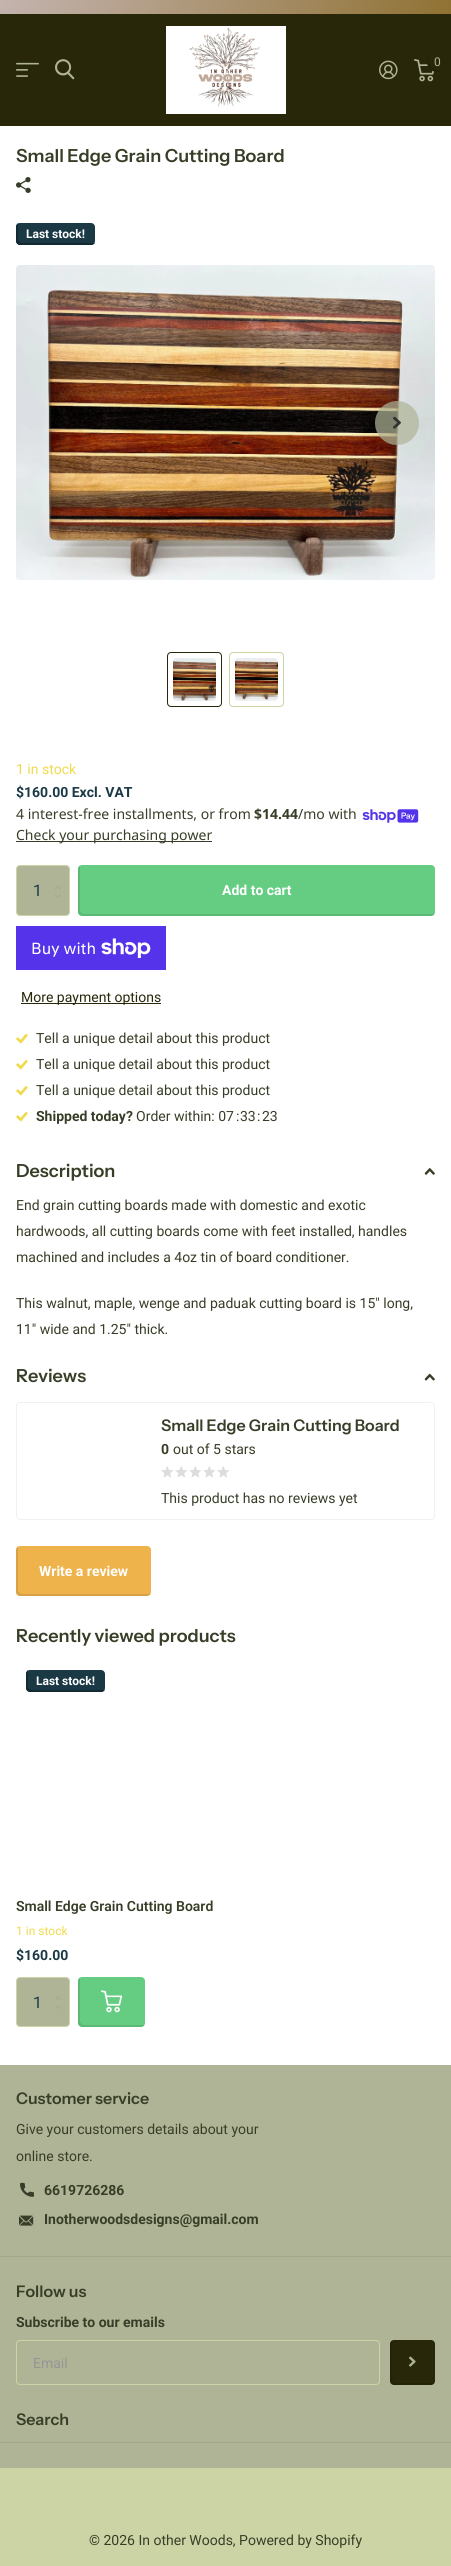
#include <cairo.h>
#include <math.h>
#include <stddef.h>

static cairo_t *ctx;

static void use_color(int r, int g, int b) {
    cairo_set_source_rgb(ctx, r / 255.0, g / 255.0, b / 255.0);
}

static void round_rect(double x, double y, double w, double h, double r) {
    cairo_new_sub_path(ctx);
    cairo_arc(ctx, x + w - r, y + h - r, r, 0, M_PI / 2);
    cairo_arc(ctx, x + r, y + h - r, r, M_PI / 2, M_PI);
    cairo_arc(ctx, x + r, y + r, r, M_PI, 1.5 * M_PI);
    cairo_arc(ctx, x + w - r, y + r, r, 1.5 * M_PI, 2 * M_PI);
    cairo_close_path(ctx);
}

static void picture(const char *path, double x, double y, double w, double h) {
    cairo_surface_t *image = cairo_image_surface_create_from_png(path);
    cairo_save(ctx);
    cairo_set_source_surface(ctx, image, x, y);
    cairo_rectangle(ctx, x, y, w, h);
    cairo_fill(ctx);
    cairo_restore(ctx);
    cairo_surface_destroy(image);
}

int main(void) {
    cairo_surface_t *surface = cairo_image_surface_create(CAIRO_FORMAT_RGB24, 451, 2566);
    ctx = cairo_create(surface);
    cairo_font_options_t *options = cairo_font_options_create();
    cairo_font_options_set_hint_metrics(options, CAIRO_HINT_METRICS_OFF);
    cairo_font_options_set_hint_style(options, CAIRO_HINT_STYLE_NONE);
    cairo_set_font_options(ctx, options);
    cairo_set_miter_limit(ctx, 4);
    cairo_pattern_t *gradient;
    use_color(255, 255, 255);
    cairo_paint(ctx);
    gradient = cairo_pattern_create_linear(32, -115, 419, 109);
    cairo_pattern_add_color_stop_rgba(gradient, 0, 0.784, 0.725, 0.725, 1);
    cairo_pattern_add_color_stop_rgba(gradient, 1, 0.553, 0.431, 0.173, 1);
    cairo_set_source(ctx, gradient);
    cairo_pattern_destroy(gradient);
    cairo_rectangle(ctx, 0, 0, 451, 14);
    cairo_fill(ctx);
    use_color(40, 39, 10);
    cairo_rectangle(ctx, 0, 14, 451, 112);
    cairo_fill(ctx);
    picture("img1.png", 16, 62, 23, 15);
    picture("img2.png", 55, 59, 20, 21);
    picture("img3.png", 166, 26, 120, 88);
    picture("img4.png", 379, 60, 19, 20);
    picture("img5.png", 414, 59, 20, 23);
    cairo_arc(ctx, 437, 62, 10, 0, 2 * M_PI);
    cairo_fill(ctx);
    cairo_set_source_rgba(ctx, 0, 0, 0, 0.1);
    cairo_new_path(ctx);
    cairo_move_to(ctx, 445, 68.5);
    cairo_curve_to(ctx, 436, 74.5, 424.5, 63.5, 431, 54);
    cairo_curve_to(ctx, 426, 57.5, 425.5, 65, 430, 69);
    cairo_curve_to(ctx, 434, 73, 441, 73, 445, 68.5);
    cairo_close_path(ctx);
    cairo_fill(ctx);
    cairo_select_font_face(ctx, "Roboto", CAIRO_FONT_SLANT_NORMAL, CAIRO_FONT_WEIGHT_NORMAL);
    cairo_set_font_size(ctx, 12);
    use_color(175, 180, 150);
    cairo_move_to(ctx, 434, 66);
    cairo_show_text(ctx, "0");
    cairo_select_font_face(ctx, "Instrument Sans SemiBold", CAIRO_FONT_SLANT_NORMAL, CAIRO_FONT_WEIGHT_NORMAL);
    cairo_set_font_size(ctx, 18);
    use_color(55, 62, 39);
    cairo_move_to(ctx, 16, 162);
    cairo_show_text(ctx, "Small Edge Grain Cutting Board");
    picture("img6.png", 16, 177, 15, 16);
    use_color(26, 57, 69);
    round_rect(16, 223, 79, 22, 4);
    cairo_fill(ctx);
    use_color(19, 42, 50);
    cairo_new_path(ctx);
    cairo_move_to(ctx, 18, 223);
    cairo_curve_to(ctx, 17, 224, 16, 225, 16, 227);
    cairo_line_to(ctx, 16, 241);
    cairo_curve_to(ctx, 16, 243, 18, 245, 20, 245);
    cairo_line_to(ctx, 91, 245);
    cairo_curve_to(ctx, 93, 245, 94, 244, 95, 243);
    cairo_line_to(ctx, 93, 243);
    cairo_line_to(ctx, 22, 243);
    cairo_curve_to(ctx, 20, 243, 18, 241, 18, 239);
    cairo_line_to(ctx, 18, 225);
    cairo_close_path(ctx);
    cairo_fill(ctx);
    cairo_select_font_face(ctx, "Roboto", CAIRO_FONT_SLANT_NORMAL, CAIRO_FONT_WEIGHT_BOLD);
    cairo_set_font_size(ctx, 12);
    use_color(255, 255, 255);
    cairo_move_to(ctx, 26, 238);
    cairo_show_text(ctx, "Last stock!");
    picture("img7.png", 16, 265, 419, 315);
    cairo_set_source_rgba(ctx, 0.686, 0.706, 0.588, 0.7);
    cairo_arc(ctx, 397, 423, 22, 0, 2 * M_PI);
    cairo_fill(ctx);
    picture("img8.png", 393, 416, 8, 13);
    round_rect(167.5, 652.5, 54, 54, 3.5);
    use_color(40, 39, 10);
    cairo_set_line_width(ctx, 1);
    cairo_stroke(ctx);
    picture("img9.png", 173, 658, 43, 43);
    round_rect(229.5, 652.5, 54, 54, 3.5);
    use_color(204, 212, 165);
    cairo_stroke(ctx);
    picture("img10.png", 235, 658, 43, 43);
    cairo_select_font_face(ctx, "Roboto", CAIRO_FONT_SLANT_NORMAL, CAIRO_FONT_WEIGHT_NORMAL);
    cairo_set_font_size(ctx, 14);
    use_color(239, 218, 76);
    cairo_move_to(ctx, 16, 774);
    cairo_show_text(ctx, "1 in stock");
    cairo_select_font_face(ctx, "Roboto", CAIRO_FONT_SLANT_NORMAL, CAIRO_FONT_WEIGHT_BOLD);
    use_color(26, 57, 69);
    cairo_move_to(ctx, 16, 797);
    cairo_show_text(ctx, "$160.00 Excl. VAT");
    cairo_select_font_face(ctx, "Noto Sans", CAIRO_FONT_SLANT_NORMAL, CAIRO_FONT_WEIGHT_NORMAL);
    use_color(55, 62, 39);
    cairo_move_to(ctx, 16, 819);
    cairo_show_text(ctx, "4 interest-free installments, or from");
    cairo_select_font_face(ctx, "Noto Sans", CAIRO_FONT_SLANT_NORMAL, CAIRO_FONT_WEIGHT_BOLD);
    cairo_move_to(ctx, 254, 819);
    cairo_show_text(ctx, "$14.44");
    cairo_select_font_face(ctx, "Noto Sans", CAIRO_FONT_SLANT_NORMAL, CAIRO_FONT_WEIGHT_NORMAL);
    cairo_move_to(ctx, 298, 819);
    cairo_show_text(ctx, "/mo with");
    picture("img11.png", 362, 809, 57, 14);
    cairo_rectangle(ctx, 16, 841, 196, 1);
    cairo_fill(ctx);
    cairo_move_to(ctx, 16, 840);
    cairo_show_text(ctx, "Check your purchasing power");
    use_color(175, 180, 150);
    round_rect(16.5, 865.5, 53, 50, 3.5);
    cairo_fill_preserve(ctx);
    use_color(204, 212, 165);
    cairo_stroke(ctx);
    cairo_select_font_face(ctx, "Roboto", CAIRO_FONT_SLANT_NORMAL, CAIRO_FONT_WEIGHT_NORMAL);
    cairo_set_font_size(ctx, 16);
    use_color(26, 57, 69);
    cairo_move_to(ctx, 33, 896);
    cairo_show_text(ctx, "1");
    picture("img12.png", 55, 885, 6, 4);
    picture("img13.png", 55, 894, 6, 4);
    use_color(100, 205, 130);
    round_rect(78, 865, 357, 51, 4);
    cairo_fill(ctx);
    cairo_set_source_rgba(ctx, 0, 0, 0, 0.1);
    cairo_new_path(ctx);
    cairo_move_to(ctx, 80, 865);
    cairo_curve_to(ctx, 79, 866, 78, 867, 78, 869);
    cairo_line_to(ctx, 78, 912);
    cairo_curve_to(ctx, 78, 914, 80, 916, 82, 916);
    cairo_line_to(ctx, 431, 916);
    cairo_curve_to(ctx, 433, 916, 434, 915, 435, 914);
    cairo_line_to(ctx, 433, 914);
    cairo_line_to(ctx, 84, 914);
    cairo_curve_to(ctx, 82, 914, 80, 912, 80, 910);
    cairo_line_to(ctx, 80, 867);
    cairo_close_path(ctx);
    cairo_fill(ctx);
    cairo_select_font_face(ctx, "Roboto", CAIRO_FONT_SLANT_NORMAL, CAIRO_FONT_WEIGHT_BOLD);
    cairo_set_font_size(ctx, 14);
    use_color(255, 255, 255);
    cairo_move_to(ctx, 222, 895);
    cairo_show_text(ctx, "Add to cart");
    use_color(84, 51, 235);
    cairo_rectangle(ctx, 16, 926, 150, 44);
    cairo_fill(ctx);
    cairo_select_font_face(ctx, "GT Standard", CAIRO_FONT_SLANT_NORMAL, CAIRO_FONT_WEIGHT_NORMAL);
    cairo_set_font_size(ctx, 16);
    use_color(255, 255, 255);
    cairo_move_to(ctx, 31, 954);
    cairo_show_text(ctx, "Buy with");
    picture("img14.png", 101, 938, 50, 20);
    use_color(40, 39, 10);
    cairo_rectangle(ctx, 21, 1003, 140, 1);
    cairo_fill(ctx);
    cairo_select_font_face(ctx, "Roboto", CAIRO_FONT_SLANT_NORMAL, CAIRO_FONT_WEIGHT_NORMAL);
    cairo_set_font_size(ctx, 14);
    cairo_move_to(ctx, 21, 1002);
    cairo_show_text(ctx, "More payment options");
    picture("img15.png", 16, 1033, 12, 11);
    use_color(55, 62, 39);
    cairo_move_to(ctx, 36, 1043);
    cairo_show_text(ctx, "Tell a unique detail about this product");
    picture("img15.png", 16, 1059, 12, 11);
    cairo_move_to(ctx, 36, 1069);
    cairo_show_text(ctx, "Tell a unique detail about this product");
    picture("img15.png", 16, 1085, 12, 11);
    cairo_move_to(ctx, 36, 1095);
    cairo_show_text(ctx, "Tell a unique detail about this product");
    picture("img15.png", 16, 1111, 12, 11);
    cairo_select_font_face(ctx, "Roboto", CAIRO_FONT_SLANT_NORMAL, CAIRO_FONT_WEIGHT_BOLD);
    cairo_move_to(ctx, 36, 1121);
    cairo_show_text(ctx, "Shipped today?");
    cairo_select_font_face(ctx, "Roboto", CAIRO_FONT_SLANT_NORMAL, CAIRO_FONT_WEIGHT_NORMAL);
    cairo_move_to(ctx, 136, 1121);
    cairo_show_text(ctx, "Order within: 07");
    cairo_move_to(ctx, 236, 1121);
    cairo_show_text(ctx, ":");
    cairo_move_to(ctx, 240, 1121);
    cairo_show_text(ctx, "33");
    cairo_move_to(ctx, 257, 1121);
    cairo_show_text(ctx, ":");
    cairo_move_to(ctx, 262, 1121);
    cairo_show_text(ctx, "23");
    cairo_select_font_face(ctx, "Instrument Sans SemiBold", CAIRO_FONT_SLANT_NORMAL, CAIRO_FONT_WEIGHT_NORMAL);
    cairo_set_font_size(ctx, 18);
    cairo_move_to(ctx, 16, 1177);
    cairo_show_text(ctx, "Description");
    picture("img16.png", 424, 1168, 11, 7);
    cairo_select_font_face(ctx, "Roboto", CAIRO_FONT_SLANT_NORMAL, CAIRO_FONT_WEIGHT_NORMAL);
    cairo_set_font_size(ctx, 14);
    cairo_move_to(ctx, 16, 1210);
    cairo_show_text(ctx, "End grain cutting boards made with domestic and exotic");
    cairo_move_to(ctx, 16, 1236);
    cairo_show_text(ctx, "hardwoods, all cutting boards come with feet installed, handles");
    cairo_move_to(ctx, 16, 1262);
    cairo_show_text(ctx, "machined and includes a 4oz tin of board conditioner.");
    cairo_move_to(ctx, 16, 1308);
    cairo_show_text(ctx, "This walnut, maple, wenge and paduak cutting board is 15\" long,");
    cairo_move_to(ctx, 16, 1334);
    cairo_show_text(ctx, "11\" wide and 1.25\" thick.");
    cairo_select_font_face(ctx, "Instrument Sans SemiBold", CAIRO_FONT_SLANT_NORMAL, CAIRO_FONT_WEIGHT_NORMAL);
    cairo_set_font_size(ctx, 18);
    cairo_move_to(ctx, 16, 1382);
    cairo_show_text(ctx, "Reviews");
    picture("img17.png", 424, 1373, 11, 8);
    round_rect(16.5, 1402.5, 418, 117, 3.5);
    use_color(241, 241, 240);
    cairo_stroke(ctx);
    cairo_set_font_size(ctx, 16);
    use_color(55, 62, 39);
    cairo_move_to(ctx, 161, 1431);
    cairo_show_text(ctx, "Small Edge Grain Cutting Board");
    cairo_select_font_face(ctx, "Roboto", CAIRO_FONT_SLANT_NORMAL, CAIRO_FONT_WEIGHT_BOLD);
    cairo_set_font_size(ctx, 14);
    cairo_move_to(ctx, 161, 1454);
    cairo_show_text(ctx, "0");
    cairo_select_font_face(ctx, "Roboto", CAIRO_FONT_SLANT_NORMAL, CAIRO_FONT_WEIGHT_NORMAL);
    cairo_move_to(ctx, 173, 1454);
    cairo_show_text(ctx, "out of 5 stars");
    picture("img18.png", 161, 1466, 13, 12);
    picture("img18.png", 175, 1466, 13, 12);
    picture("img18.png", 189, 1466, 13, 12);
    picture("img18.png", 203, 1466, 13, 12);
    picture("img18.png", 217, 1466, 13, 12);
    cairo_move_to(ctx, 161, 1503);
    cairo_show_text(ctx, "This product has no reviews yet");
    use_color(239, 179, 76);
    round_rect(16, 1546, 135, 50, 4);
    cairo_fill(ctx);
    cairo_set_source_rgba(ctx, 0, 0, 0, 0.1);
    cairo_new_path(ctx);
    cairo_move_to(ctx, 18, 1546);
    cairo_curve_to(ctx, 17, 1547, 16, 1548, 16, 1550);
    cairo_line_to(ctx, 16, 1592);
    cairo_curve_to(ctx, 16, 1594, 18, 1596, 20, 1596);
    cairo_line_to(ctx, 147, 1596);
    cairo_curve_to(ctx, 149, 1596, 150, 1595, 151, 1594);
    cairo_line_to(ctx, 149, 1594);
    cairo_line_to(ctx, 22, 1594);
    cairo_curve_to(ctx, 20, 1594, 18, 1592, 18, 1590);
    cairo_line_to(ctx, 18, 1548);
    cairo_close_path(ctx);
    cairo_fill(ctx);
    cairo_select_font_face(ctx, "Roboto", CAIRO_FONT_SLANT_NORMAL, CAIRO_FONT_WEIGHT_BOLD);
    use_color(255, 255, 255);
    cairo_move_to(ctx, 39, 1576);
    cairo_show_text(ctx, "Write a review");
    cairo_select_font_face(ctx, "Instrument Sans SemiBold", CAIRO_FONT_SLANT_NORMAL, CAIRO_FONT_WEIGHT_NORMAL);
    cairo_set_font_size(ctx, 18);
    use_color(55, 62, 39);
    cairo_move_to(ctx, 16, 1642);
    cairo_show_text(ctx, "Recently viewed products");
    use_color(26, 57, 69);
    round_rect(26, 1670, 79, 22, 4);
    cairo_fill(ctx);
    use_color(19, 42, 50);
    cairo_new_path(ctx);
    cairo_move_to(ctx, 28, 1670);
    cairo_line_to(ctx, 28, 1672);
    cairo_line_to(ctx, 28, 1686);
    cairo_curve_to(ctx, 28, 1688, 30, 1690, 32, 1690);
    cairo_line_to(ctx, 103, 1690);
    cairo_line_to(ctx, 105, 1690);
    cairo_curve_to(ctx, 104, 1691, 103, 1692, 101, 1692);
    cairo_line_to(ctx, 30, 1692);
    cairo_curve_to(ctx, 28, 1692, 26, 1690, 26, 1688);
    cairo_line_to(ctx, 26, 1674);
    cairo_curve_to(ctx, 26, 1672, 27, 1671, 28, 1670);
    cairo_close_path(ctx);
    cairo_fill(ctx);
    cairo_select_font_face(ctx, "Roboto", CAIRO_FONT_SLANT_NORMAL, CAIRO_FONT_WEIGHT_BOLD);
    cairo_set_font_size(ctx, 12);
    use_color(255, 255, 255);
    cairo_move_to(ctx, 36, 1685);
    cairo_show_text(ctx, "Last stock!");
    cairo_select_font_face(ctx, "Roboto SemiBold", CAIRO_FONT_SLANT_NORMAL, CAIRO_FONT_WEIGHT_NORMAL);
    cairo_set_font_size(ctx, 14);
    use_color(55, 62, 39);
    cairo_move_to(ctx, 16, 1911);
    cairo_show_text(ctx, "Small Edge Grain Cutting Board");
    cairo_select_font_face(ctx, "Roboto", CAIRO_FONT_SLANT_NORMAL, CAIRO_FONT_WEIGHT_NORMAL);
    cairo_set_font_size(ctx, 12);
    use_color(239, 218, 76);
    cairo_move_to(ctx, 16, 1935);
    cairo_show_text(ctx, "1 in stock");
    cairo_select_font_face(ctx, "Roboto", CAIRO_FONT_SLANT_NORMAL, CAIRO_FONT_WEIGHT_BOLD);
    cairo_set_font_size(ctx, 14);
    use_color(26, 57, 69);
    cairo_move_to(ctx, 16, 1960);
    cairo_show_text(ctx, "$160.00");
    use_color(175, 180, 150);
    round_rect(16.5, 1977.5, 53, 49, 3.5);
    cairo_fill_preserve(ctx);
    use_color(204, 212, 165);
    cairo_stroke(ctx);
    cairo_select_font_face(ctx, "Roboto", CAIRO_FONT_SLANT_NORMAL, CAIRO_FONT_WEIGHT_NORMAL);
    cairo_set_font_size(ctx, 16);
    use_color(26, 57, 69);
    cairo_move_to(ctx, 33, 2008);
    cairo_show_text(ctx, "1");
    picture("img12.png", 55, 1996, 6, 4);
    picture("img13.png", 55, 2005, 6, 4);
    use_color(100, 205, 130);
    round_rect(78, 1977, 67, 50, 4);
    cairo_fill(ctx);
    cairo_set_source_rgba(ctx, 0, 0, 0, 0.1);
    cairo_new_path(ctx);
    cairo_move_to(ctx, 80, 1977);
    cairo_curve_to(ctx, 79, 1978, 78, 1979, 78, 1981);
    cairo_line_to(ctx, 78, 2023);
    cairo_curve_to(ctx, 78, 2025, 80, 2027, 82, 2027);
    cairo_line_to(ctx, 141, 2027);
    cairo_curve_to(ctx, 143, 2027, 144, 2026, 145, 2025);
    cairo_line_to(ctx, 143, 2025);
    cairo_line_to(ctx, 84, 2025);
    cairo_curve_to(ctx, 82, 2025, 80, 2023, 80, 2021);
    cairo_line_to(ctx, 80, 1979);
    cairo_close_path(ctx);
    cairo_fill(ctx);
    picture("img19.png", 101, 1990, 22, 23);
    use_color(175, 180, 150);
    cairo_rectangle(ctx, 0, 2065, 451, 403);
    cairo_fill(ctx);
    cairo_select_font_face(ctx, "Instrument Sans SemiBold", CAIRO_FONT_SLANT_NORMAL, CAIRO_FONT_WEIGHT_NORMAL);
    use_color(55, 62, 39);
    cairo_move_to(ctx, 16, 2104);
    cairo_show_text(ctx, "Customer service");
    cairo_select_font_face(ctx, "Roboto", CAIRO_FONT_SLANT_NORMAL, CAIRO_FONT_WEIGHT_NORMAL);
    cairo_set_font_size(ctx, 14);
    cairo_move_to(ctx, 16, 2134);
    cairo_show_text(ctx, "Give your customers details about your");
    cairo_move_to(ctx, 16, 2161);
    cairo_show_text(ctx, "online store.");
    picture("img20.png", 20, 2182, 14, 15);
    cairo_select_font_face(ctx, "Roboto", CAIRO_FONT_SLANT_NORMAL, CAIRO_FONT_WEIGHT_BOLD);
    cairo_move_to(ctx, 44, 2195);
    cairo_show_text(ctx, "6619726286");
    picture("img21.png", 19, 2215, 15, 11);
    cairo_move_to(ctx, 44, 2224);
    cairo_show_text(ctx, "Inotherwoodsdesigns@gmail.com");
    use_color(163, 168, 139);
    cairo_rectangle(ctx, 0, 2256, 451, 1);
    cairo_fill(ctx);
    cairo_select_font_face(ctx, "Instrument Sans SemiBold", CAIRO_FONT_SLANT_NORMAL, CAIRO_FONT_WEIGHT_NORMAL);
    cairo_set_font_size(ctx, 16);
    use_color(55, 62, 39);
    cairo_move_to(ctx, 16, 2297);
    cairo_show_text(ctx, "Follow us");
    cairo_select_font_face(ctx, "Roboto", CAIRO_FONT_SLANT_NORMAL, CAIRO_FONT_WEIGHT_BOLD);
    cairo_set_font_size(ctx, 14);
    cairo_move_to(ctx, 16, 2327);
    cairo_show_text(ctx, "Subscribe to our emails");
    round_rect(16.5, 2340.5, 363, 44, 3.5);
    use_color(204, 212, 165);
    cairo_stroke(ctx);
    cairo_select_font_face(ctx, "Roboto", CAIRO_FONT_SLANT_NORMAL, CAIRO_FONT_WEIGHT_NORMAL);
    use_color(149, 149, 149);
    cairo_move_to(ctx, 33, 2368);
    cairo_show_text(ctx, "Email");
    use_color(40, 39, 10);
    round_rect(390, 2340, 45, 45, 4);
    cairo_fill(ctx);
    cairo_set_source_rgba(ctx, 0, 0, 0, 0.1);
    cairo_new_path(ctx);
    cairo_move_to(ctx, 392, 2340);
    cairo_curve_to(ctx, 391, 2341, 390, 2342, 390, 2344);
    cairo_line_to(ctx, 390, 2381);
    cairo_curve_to(ctx, 390, 2383, 392, 2385, 394, 2385);
    cairo_line_to(ctx, 431, 2385);
    cairo_curve_to(ctx, 433, 2385, 434, 2384, 435, 2383);
    cairo_line_to(ctx, 433, 2383);
    cairo_line_to(ctx, 396, 2383);
    cairo_curve_to(ctx, 394, 2383, 392, 2381, 392, 2379);
    cairo_line_to(ctx, 392, 2342);
    cairo_close_path(ctx);
    cairo_fill(ctx);
    picture("img22.png", 409, 2356, 7, 11);
    cairo_select_font_face(ctx, "Instrument Sans SemiBold", CAIRO_FONT_SLANT_NORMAL, CAIRO_FONT_WEIGHT_NORMAL);
    cairo_set_font_size(ctx, 16);
    use_color(55, 62, 39);
    cairo_move_to(ctx, 16, 2425);
    cairo_show_text(ctx, "Search");
    use_color(163, 168, 139);
    cairo_rectangle(ctx, 0, 2442, 451, 1);
    cairo_fill(ctx);
    use_color(204, 212, 165);
    cairo_rectangle(ctx, 0, 2468, 451, 98);
    cairo_fill(ctx);
    cairo_select_font_face(ctx, "Roboto", CAIRO_FONT_SLANT_NORMAL, CAIRO_FONT_WEIGHT_NORMAL);
    cairo_set_font_size(ctx, 14);
    use_color(55, 62, 39);
    cairo_move_to(ctx, 89, 2545);
    cairo_show_text(ctx, "© 2026 In other Woods, Powered by Shopify");
    cairo_surface_write_to_png(surface, "result.png");
    cairo_font_options_destroy(options);
    cairo_destroy(ctx);
    cairo_surface_destroy(surface);
    return 0;
}
